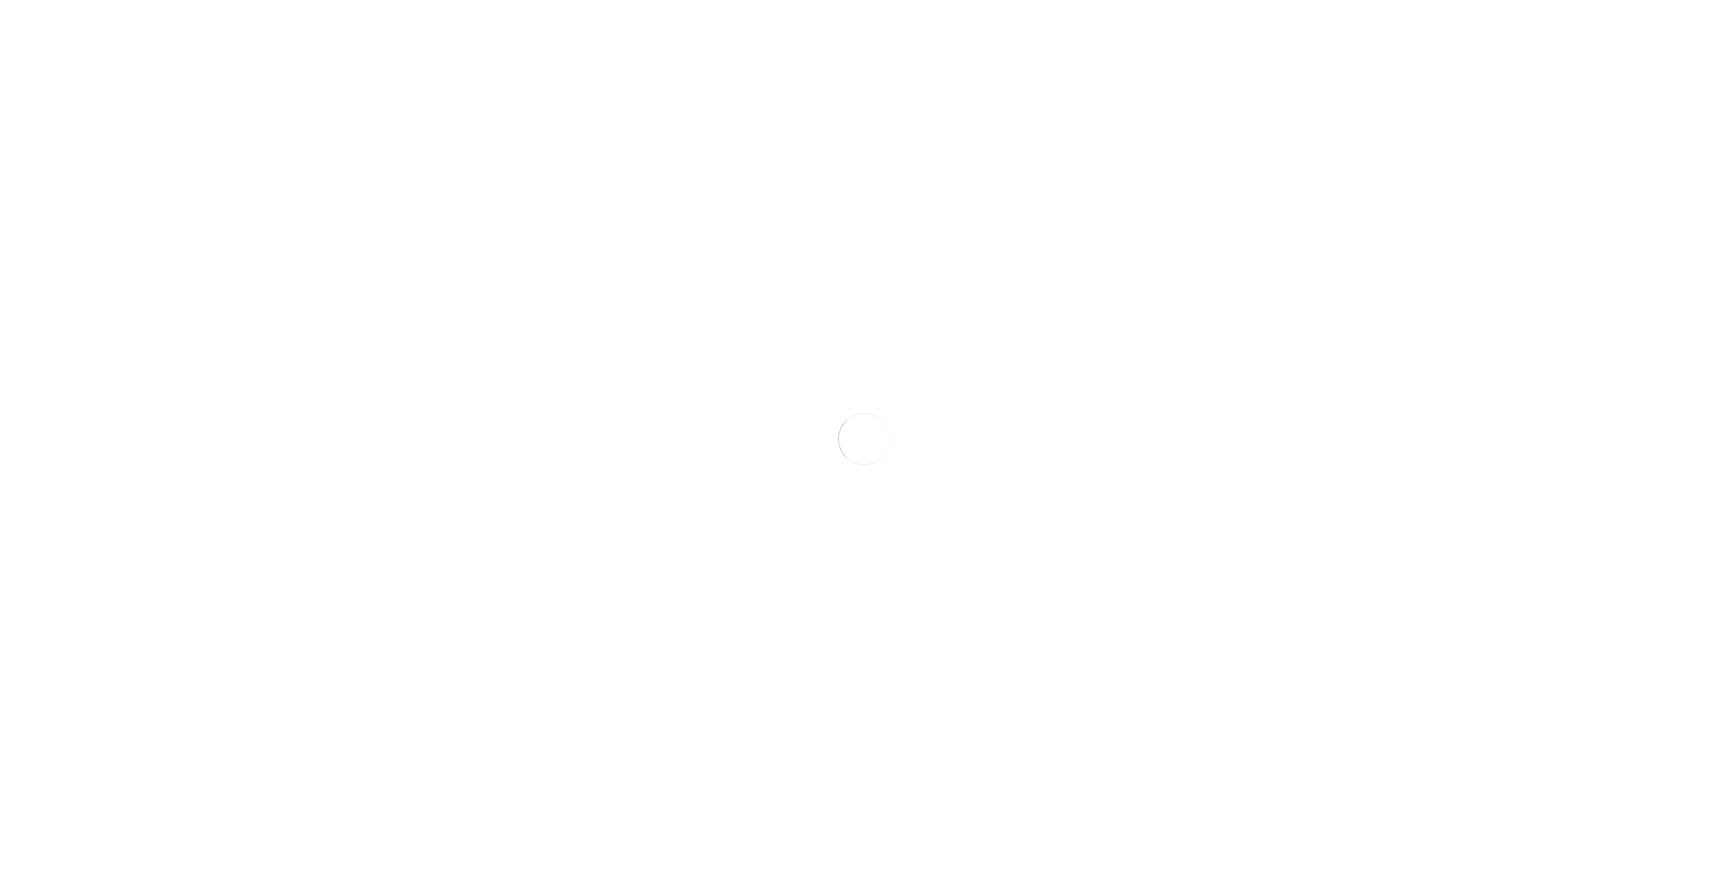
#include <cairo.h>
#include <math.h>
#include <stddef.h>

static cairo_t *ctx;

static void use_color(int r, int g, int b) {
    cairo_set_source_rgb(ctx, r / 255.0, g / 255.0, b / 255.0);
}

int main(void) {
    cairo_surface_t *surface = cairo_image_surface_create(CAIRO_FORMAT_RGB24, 1725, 876);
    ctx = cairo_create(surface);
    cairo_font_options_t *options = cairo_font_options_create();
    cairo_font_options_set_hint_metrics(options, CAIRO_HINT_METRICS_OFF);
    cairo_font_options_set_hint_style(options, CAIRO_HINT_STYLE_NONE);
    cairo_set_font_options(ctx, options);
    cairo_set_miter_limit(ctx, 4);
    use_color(255, 255, 255);
    cairo_paint(ctx);
    cairo_new_path(ctx);
    cairo_move_to(ctx, 846, 421);
    cairo_curve_to(ctx, 856, 411, 872, 411, 882, 421);
    use_color(241, 241, 241);
    cairo_set_line_width(ctx, 1);
    cairo_stroke(ctx);
    cairo_new_path(ctx);
    cairo_move_to(ctx, 882, 421);
    cairo_curve_to(ctx, 892, 431, 892, 447, 882, 457);
    use_color(250, 250, 250);
    cairo_stroke(ctx);
    cairo_new_path(ctx);
    cairo_move_to(ctx, 882, 457);
    cairo_curve_to(ctx, 872, 467, 856, 467, 846, 457);
    use_color(241, 241, 241);
    cairo_stroke(ctx);
    cairo_new_path(ctx);
    cairo_move_to(ctx, 846, 457);
    cairo_curve_to(ctx, 836, 447, 836, 431, 846, 421);
    use_color(207, 207, 207);
    cairo_stroke(ctx);
    cairo_surface_write_to_png(surface, "result.png");
    cairo_font_options_destroy(options);
    cairo_destroy(ctx);
    cairo_surface_destroy(surface);
    return 0;
}
